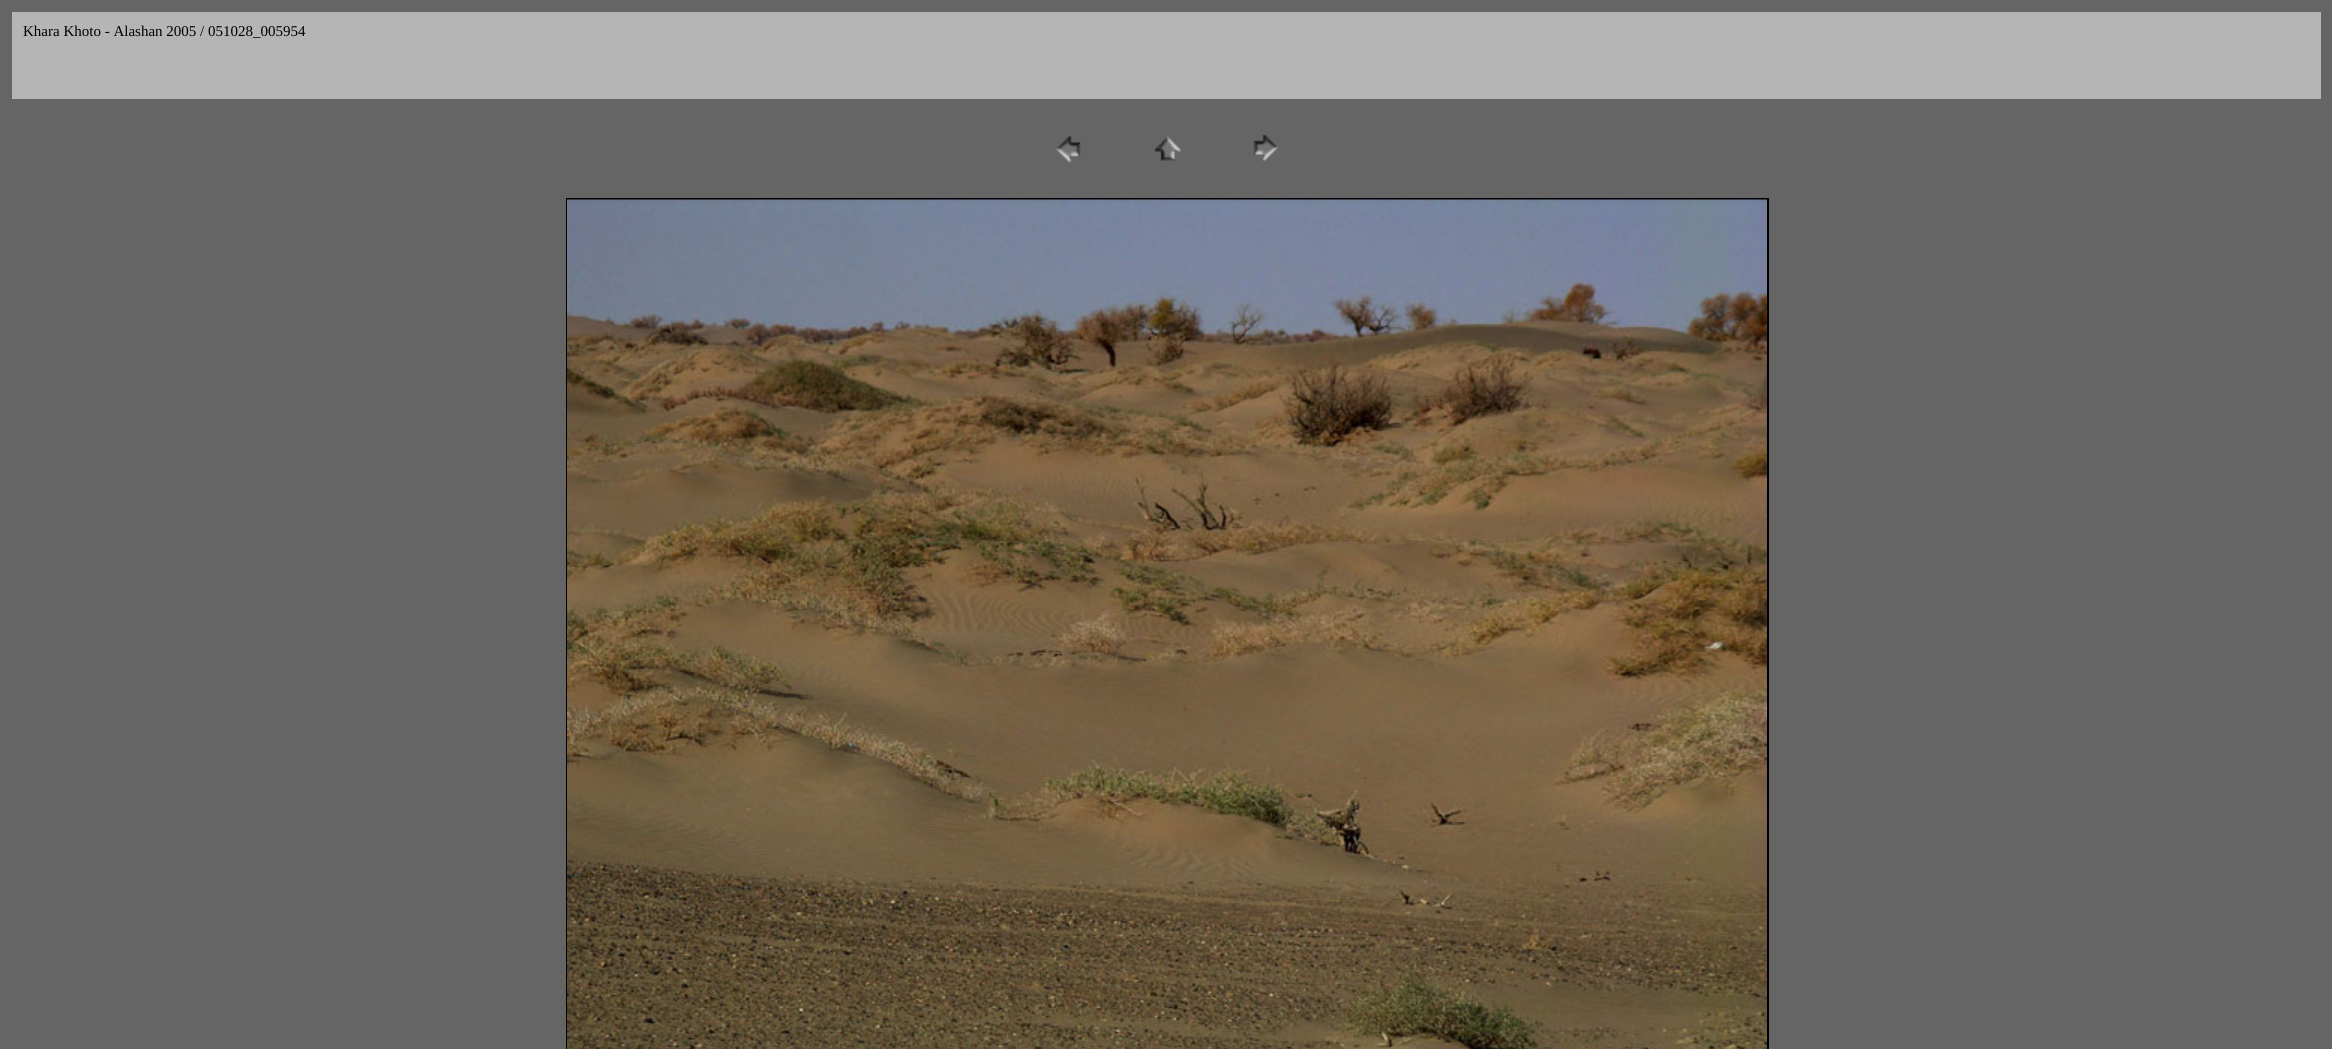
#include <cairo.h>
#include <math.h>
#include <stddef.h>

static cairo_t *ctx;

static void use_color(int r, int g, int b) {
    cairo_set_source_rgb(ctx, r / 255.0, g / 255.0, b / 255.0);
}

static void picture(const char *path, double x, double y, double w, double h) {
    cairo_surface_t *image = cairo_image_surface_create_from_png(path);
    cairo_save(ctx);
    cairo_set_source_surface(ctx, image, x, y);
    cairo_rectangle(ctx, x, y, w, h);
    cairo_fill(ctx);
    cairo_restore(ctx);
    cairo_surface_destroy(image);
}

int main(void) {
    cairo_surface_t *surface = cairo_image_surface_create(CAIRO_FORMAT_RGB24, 2332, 1049);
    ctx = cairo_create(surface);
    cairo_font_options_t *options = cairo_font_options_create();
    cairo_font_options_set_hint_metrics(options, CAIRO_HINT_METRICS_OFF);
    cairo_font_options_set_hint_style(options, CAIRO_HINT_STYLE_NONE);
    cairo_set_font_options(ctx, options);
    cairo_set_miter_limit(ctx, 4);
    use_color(102, 101, 101);
    cairo_paint(ctx);
    use_color(182, 181, 181);
    cairo_rectangle(ctx, 12, 12, 2309, 87);
    cairo_fill(ctx);
    cairo_select_font_face(ctx, "Liberation Serif", CAIRO_FONT_SLANT_NORMAL, CAIRO_FONT_WEIGHT_NORMAL);
    cairo_set_font_size(ctx, 15);
    use_color(0, 0, 0);
    cairo_move_to(ctx, 23, 36);
    cairo_show_text(ctx, "Khara Khoto - Alashan 2005 / 051028_005954");
    picture("img1.png", 1055, 136, 26, 27);
    picture("img2.png", 1154, 136, 27, 25);
    picture("img3.png", 1253, 134, 26, 27);
    cairo_rectangle(ctx, 567, 199, 1201, 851);
    cairo_stroke(ctx);
    picture("img4.png", 567, 199, 1200, 850);
    cairo_surface_write_to_png(surface, "result.png");
    cairo_font_options_destroy(options);
    cairo_destroy(ctx);
    cairo_surface_destroy(surface);
    return 0;
}
